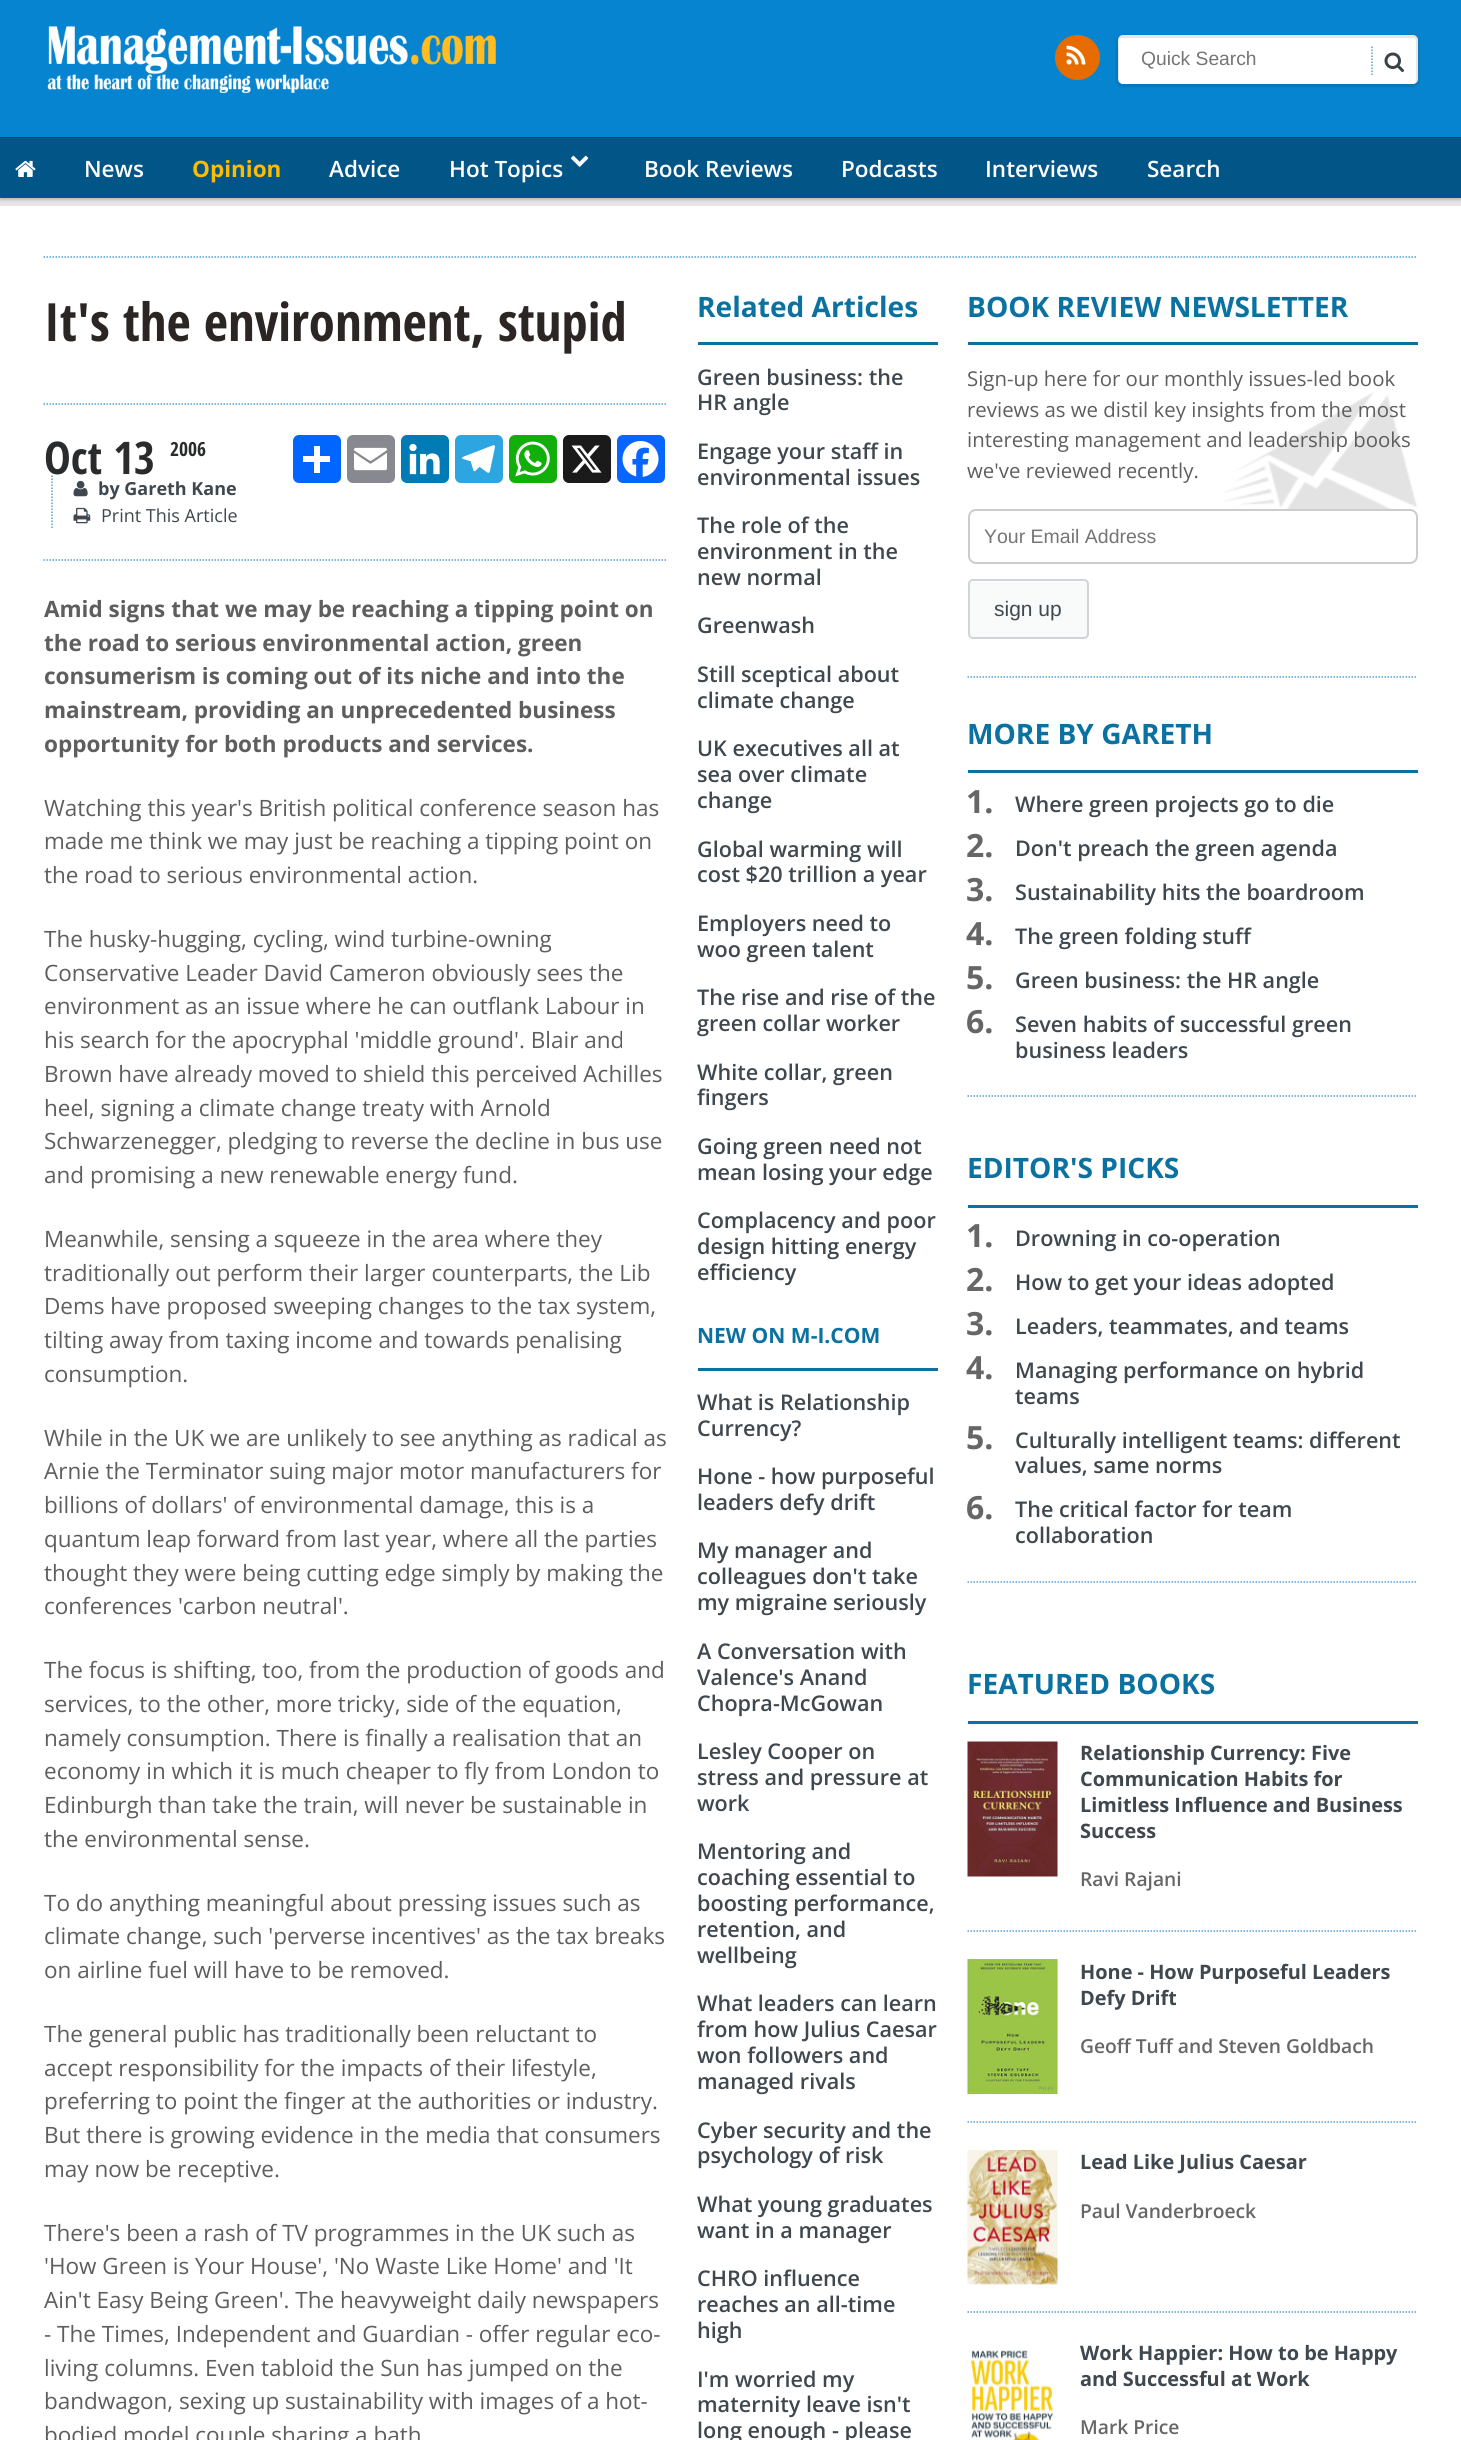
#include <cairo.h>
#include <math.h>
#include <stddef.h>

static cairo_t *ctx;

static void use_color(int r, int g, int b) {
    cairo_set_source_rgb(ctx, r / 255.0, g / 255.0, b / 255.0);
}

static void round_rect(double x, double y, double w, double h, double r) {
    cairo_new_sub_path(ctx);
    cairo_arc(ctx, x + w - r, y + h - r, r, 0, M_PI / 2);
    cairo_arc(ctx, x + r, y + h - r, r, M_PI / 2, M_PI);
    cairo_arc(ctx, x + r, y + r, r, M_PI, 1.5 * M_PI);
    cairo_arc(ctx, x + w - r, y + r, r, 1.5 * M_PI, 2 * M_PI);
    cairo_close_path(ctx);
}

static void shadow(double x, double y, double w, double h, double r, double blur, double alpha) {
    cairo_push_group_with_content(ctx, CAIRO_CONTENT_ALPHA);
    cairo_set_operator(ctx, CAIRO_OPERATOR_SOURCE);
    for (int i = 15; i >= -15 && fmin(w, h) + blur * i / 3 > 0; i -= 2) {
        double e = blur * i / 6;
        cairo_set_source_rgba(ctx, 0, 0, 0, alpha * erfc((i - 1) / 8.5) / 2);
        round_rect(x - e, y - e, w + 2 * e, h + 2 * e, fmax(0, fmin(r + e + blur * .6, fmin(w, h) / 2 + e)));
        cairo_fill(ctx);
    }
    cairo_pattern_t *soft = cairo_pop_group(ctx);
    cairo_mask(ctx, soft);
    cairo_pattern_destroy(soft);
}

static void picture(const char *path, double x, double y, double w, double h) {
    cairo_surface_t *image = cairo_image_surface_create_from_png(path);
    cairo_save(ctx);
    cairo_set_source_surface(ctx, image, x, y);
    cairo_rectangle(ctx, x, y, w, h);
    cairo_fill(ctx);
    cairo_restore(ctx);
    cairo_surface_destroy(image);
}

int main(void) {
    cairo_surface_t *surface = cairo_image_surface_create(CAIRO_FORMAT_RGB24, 1461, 2440);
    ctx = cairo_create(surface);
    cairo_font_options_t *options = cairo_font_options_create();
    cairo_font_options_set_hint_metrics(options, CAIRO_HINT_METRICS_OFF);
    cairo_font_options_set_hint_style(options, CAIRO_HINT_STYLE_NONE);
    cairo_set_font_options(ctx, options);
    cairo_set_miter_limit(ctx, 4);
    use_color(255, 255, 255);
    cairo_paint(ctx);
    use_color(6, 132, 207);
    cairo_rectangle(ctx, 0, 0, 1461, 137);
    cairo_fill(ctx);
    picture("img1.png", 47, 26, 449, 67);
    use_color(230, 108, 0);
    cairo_arc(ctx, 1077.5, 57.5, 22.5, 0, 2 * M_PI);
    cairo_fill(ctx);
    picture("img2.png", 1066, 45, 20, 20);
    use_color(0, 0, 0);
    shadow(1116, 35, 303, 52, 6, 1, 0.1);
    use_color(255, 255, 255);
    round_rect(1118, 35, 300, 49, 5);
    cairo_fill(ctx);
    cairo_set_source_rgba(ctx, 0, 0, 0, 0.1);
    cairo_new_path(ctx);
    cairo_move_to(ctx, 1122, 38);
    cairo_line_to(ctx, 1413, 38);
    cairo_curve_to(ctx, 1415, 38, 1416, 39, 1416, 40);
    cairo_line_to(ctx, 1416, 81);
    cairo_curve_to(ctx, 1416, 83, 1415, 84, 1414, 84);
    cairo_curve_to(ctx, 1416, 83, 1418, 81, 1418, 79);
    cairo_line_to(ctx, 1418, 40);
    cairo_curve_to(ctx, 1418, 37, 1416, 35, 1413, 35);
    cairo_line_to(ctx, 1123, 35);
    cairo_curve_to(ctx, 1120, 35, 1118, 37, 1118, 40);
    cairo_line_to(ctx, 1118, 79);
    cairo_curve_to(ctx, 1118, 80, 1118, 81, 1119, 82);
    cairo_line_to(ctx, 1119, 47);
    cairo_curve_to(ctx, 1119, 44, 1117, 38, 1122, 38);
    cairo_close_path(ctx);
    cairo_fill(ctx);
    cairo_select_font_face(ctx, "Liberation Sans", CAIRO_FONT_SLANT_NORMAL, CAIRO_FONT_WEIGHT_NORMAL);
    cairo_set_font_size(ctx, 19.25);
    use_color(117, 117, 117);
    cairo_move_to(ctx, 1141, 65);
    cairo_show_text(ctx, "Quick Search");
    cairo_new_path(ctx);
    cairo_move_to(ctx, 1372, 46.5);
    cairo_line_to(ctx, 1372, 76.5);
    use_color(86, 160, 212);
    cairo_set_line_width(ctx, 1.5);
    cairo_set_dash(ctx, (double[]){1.5, 1.5}, 2, 0);
    cairo_stroke(ctx);
    picture("img3.png", 1384, 52, 20, 20);
    use_color(230, 230, 230);
    cairo_rectangle(ctx, 0, 198, 1461, 8);
    cairo_fill(ctx);
    use_color(2, 68, 108);
    cairo_rectangle(ctx, 0, 137, 1461, 1);
    cairo_fill(ctx);
    use_color(0, 0, 0);
    shadow(0, 140, 1461, 60, 0, 1.5, 0.2);
    use_color(2, 85, 135);
    cairo_rectangle(ctx, 0, 138, 1461, 60);
    cairo_fill(ctx);
    picture("img4.png", 15, 160, 21, 17);
    cairo_select_font_face(ctx, "Open Sans SemiBold", CAIRO_FONT_SLANT_NORMAL, CAIRO_FONT_WEIGHT_NORMAL);
    cairo_set_font_size(ctx, 22.5);
    use_color(255, 255, 255);
    cairo_move_to(ctx, 84, 177);
    cairo_show_text(ctx, "News");
    cairo_select_font_face(ctx, "Open Sans", CAIRO_FONT_SLANT_NORMAL, CAIRO_FONT_WEIGHT_BOLD);
    use_color(253, 188, 0);
    cairo_move_to(ctx, 192, 177);
    cairo_show_text(ctx, "Opinion");
    cairo_select_font_face(ctx, "Open Sans SemiBold", CAIRO_FONT_SLANT_NORMAL, CAIRO_FONT_WEIGHT_NORMAL);
    use_color(255, 255, 255);
    cairo_move_to(ctx, 329, 177);
    cairo_show_text(ctx, "Advice");
    cairo_move_to(ctx, 449, 177);
    cairo_show_text(ctx, "Hot Topics");
    picture("img5.png", 571, 155, 18, 12);
    cairo_move_to(ctx, 644, 177);
    cairo_show_text(ctx, "Book Reviews");
    cairo_move_to(ctx, 841, 177);
    cairo_show_text(ctx, "Podcasts");
    cairo_move_to(ctx, 985, 177);
    cairo_show_text(ctx, "Interviews");
    cairo_move_to(ctx, 1147, 177);
    cairo_show_text(ctx, "Search");
    cairo_new_path(ctx);
    cairo_move_to(ctx, 43.5, 257);
    cairo_line_to(ctx, 1417.5, 257);
    use_color(86, 160, 212);
    cairo_stroke(ctx);
    cairo_new_path(ctx);
    cairo_move_to(ctx, 43.5, 560);
    cairo_line_to(ctx, 667.5, 560);
    cairo_stroke(ctx);
    cairo_select_font_face(ctx, "Open Sans Condensed", CAIRO_FONT_SLANT_NORMAL, CAIRO_FONT_WEIGHT_BOLD);
    cairo_set_font_size(ctx, 52.75);
    use_color(43, 38, 36);
    cairo_move_to(ctx, 44, 341);
    cairo_show_text(ctx, "It's the environment, stupid");
    cairo_new_path(ctx);
    cairo_move_to(ctx, 43.5, 404);
    cairo_line_to(ctx, 667.5, 404);
    use_color(86, 160, 212);
    cairo_stroke(ctx);
    cairo_set_font_size(ctx, 45);
    use_color(42, 43, 44);
    cairo_move_to(ctx, 44, 474);
    cairo_show_text(ctx, "Oct 13");
    cairo_set_font_size(ctx, 19.5);
    cairo_move_to(ctx, 170, 456);
    cairo_show_text(ctx, "2006");
    cairo_new_path(ctx);
    cairo_move_to(ctx, 52, 475.5);
    cairo_line_to(ctx, 52, 529.5);
    use_color(86, 160, 212);
    cairo_stroke(ctx);
    picture("img6.png", 73, 480, 15, 17);
    cairo_select_font_face(ctx, "Open Sans", CAIRO_FONT_SLANT_NORMAL, CAIRO_FONT_WEIGHT_BOLD);
    cairo_set_font_size(ctx, 18);
    use_color(63, 72, 79);
    cairo_move_to(ctx, 98, 495);
    cairo_show_text(ctx, "by Gareth Kane");
    picture("img7.png", 73, 507, 18, 17);
    cairo_select_font_face(ctx, "Open Sans", CAIRO_FONT_SLANT_NORMAL, CAIRO_FONT_WEIGHT_NORMAL);
    cairo_move_to(ctx, 101, 522);
    cairo_show_text(ctx, "Print This Article");
    use_color(1, 102, 255);
    round_rect(293, 435, 48, 48, 6);
    cairo_fill(ctx);
    use_color(255, 255, 255);
    cairo_rectangle(ctx, 314, 446, 6, 27);
    cairo_fill(ctx);
    cairo_rectangle(ctx, 303, 456, 27, 6);
    cairo_fill(ctx);
    use_color(136, 137, 144);
    round_rect(347, 435, 48, 48, 6);
    cairo_fill(ctx);
    picture("img8.png", 354, 447, 33, 24);
    use_color(0, 123, 181);
    round_rect(401, 435, 48, 48, 6);
    cairo_fill(ctx);
    picture("img9.png", 409, 443, 31, 32);
    use_color(44, 165, 224);
    round_rect(455, 435, 48, 48, 6);
    cairo_fill(ctx);
    picture("img10.png", 462, 445, 33, 28);
    use_color(18, 175, 10);
    round_rect(509, 435, 48, 48, 6);
    cairo_fill(ctx);
    picture("img11.png", 515, 441, 35, 36);
    use_color(26, 26, 26);
    round_rect(563, 435, 48, 48, 6);
    cairo_fill(ctx);
    picture("img12.png", 571, 445, 31, 28);
    use_color(8, 102, 255);
    round_rect(617, 435, 48, 48, 6);
    cairo_fill(ctx);
    picture("img13.png", 622, 441, 37, 36);
    cairo_select_font_face(ctx, "Open Sans", CAIRO_FONT_SLANT_NORMAL, CAIRO_FONT_WEIGHT_BOLD);
    cairo_set_font_size(ctx, 22.5);
    use_color(94, 94, 94);
    cairo_move_to(ctx, 44, 617);
    cairo_show_text(ctx, "Amid signs that we may be reaching a tipping point on");
    cairo_move_to(ctx, 44, 651);
    cairo_show_text(ctx, "the road to serious environmental action, green");
    cairo_move_to(ctx, 44, 684);
    cairo_show_text(ctx, "consumerism is coming out of its niche and into the");
    cairo_move_to(ctx, 44, 718);
    cairo_show_text(ctx, "mainstream, providing an unprecedented business");
    cairo_move_to(ctx, 44, 752);
    cairo_show_text(ctx, "opportunity for both products and services.");
    cairo_select_font_face(ctx, "Open Sans", CAIRO_FONT_SLANT_NORMAL, CAIRO_FONT_WEIGHT_NORMAL);
    cairo_move_to(ctx, 44, 816);
    cairo_show_text(ctx, "Watching this year's British political conference season has");
    cairo_move_to(ctx, 44, 849);
    cairo_show_text(ctx, "made me think we may just be reaching a tipping point on");
    cairo_move_to(ctx, 44, 883);
    cairo_show_text(ctx, "the road to serious environmental action.");
    cairo_move_to(ctx, 44, 947);
    cairo_show_text(ctx, "The husky-hugging, cycling, wind turbine-owning");
    cairo_move_to(ctx, 44, 981);
    cairo_show_text(ctx, "Conservative Leader David Cameron obviously sees the");
    cairo_move_to(ctx, 44, 1014);
    cairo_show_text(ctx, "environment as an issue where he can outflank Labour in");
    cairo_move_to(ctx, 44, 1048);
    cairo_show_text(ctx, "his search for the apocryphal 'middle ground'. Blair and");
    cairo_move_to(ctx, 44, 1082);
    cairo_show_text(ctx, "Brown have already moved to shield this perceived Achilles");
    cairo_move_to(ctx, 44, 1116);
    cairo_show_text(ctx, "heel, signing a climate change treaty with Arnold");
    cairo_move_to(ctx, 44, 1149);
    cairo_show_text(ctx, "Schwarzenegger, pledging to reverse the decline in bus use");
    cairo_move_to(ctx, 44, 1183);
    cairo_show_text(ctx, "and promising a new renewable energy fund.");
    cairo_move_to(ctx, 44, 1247);
    cairo_show_text(ctx, "Meanwhile, sensing a squeeze in the area where they");
    cairo_move_to(ctx, 44, 1281);
    cairo_show_text(ctx, "traditionally out perform their larger counterparts, the Lib");
    cairo_move_to(ctx, 44, 1314);
    cairo_show_text(ctx, "Dems have proposed sweeping changes to the tax system,");
    cairo_move_to(ctx, 44, 1348);
    cairo_show_text(ctx, "tilting away from taxing income and towards penalising");
    cairo_move_to(ctx, 44, 1382);
    cairo_show_text(ctx, "consumption.");
    cairo_move_to(ctx, 44, 1446);
    cairo_show_text(ctx, "While in the UK we are unlikely to see anything as radical as");
    cairo_move_to(ctx, 44, 1479);
    cairo_show_text(ctx, "Arnie the Terminator suing major motor manufacturers for");
    cairo_move_to(ctx, 44, 1513);
    cairo_show_text(ctx, "billions of dollars' of environmental damage, this is a");
    cairo_move_to(ctx, 44, 1547);
    cairo_show_text(ctx, "quantum leap forward from last year, where all the parties");
    cairo_move_to(ctx, 44, 1581);
    cairo_show_text(ctx, "thought they were being cutting edge simply by making the");
    cairo_move_to(ctx, 44, 1614);
    cairo_show_text(ctx, "conferences 'carbon neutral'.");
    cairo_move_to(ctx, 44, 1678);
    cairo_show_text(ctx, "The focus is shifting, too, from the production of goods and");
    cairo_move_to(ctx, 44, 1712);
    cairo_show_text(ctx, "services, to the other, more tricky, side of the equation,");
    cairo_move_to(ctx, 44, 1746);
    cairo_show_text(ctx, "namely consumption. There is finally a realisation that an");
    cairo_move_to(ctx, 44, 1779);
    cairo_show_text(ctx, "economy in which it is much cheaper to fly from London to");
    cairo_move_to(ctx, 44, 1813);
    cairo_show_text(ctx, "Edinburgh than take the train, will never be sustainable in");
    cairo_move_to(ctx, 44, 1847);
    cairo_show_text(ctx, "the environmental sense.");
    cairo_move_to(ctx, 44, 1911);
    cairo_show_text(ctx, "To do anything meaningful about pressing issues such as");
    cairo_move_to(ctx, 44, 1944);
    cairo_show_text(ctx, "climate change, such 'perverse incentives' as the tax breaks");
    cairo_move_to(ctx, 44, 1978);
    cairo_show_text(ctx, "on airline fuel will have to be removed.");
    cairo_move_to(ctx, 44, 2042);
    cairo_show_text(ctx, "The general public has traditionally been reluctant to");
    cairo_move_to(ctx, 44, 2076);
    cairo_show_text(ctx, "accept responsibility for the impacts of their lifestyle,");
    cairo_move_to(ctx, 44, 2109);
    cairo_show_text(ctx, "preferring to point the finger at the authorities or industry.");
    cairo_move_to(ctx, 44, 2143);
    cairo_show_text(ctx, "But there is growing evidence in the media that consumers");
    cairo_move_to(ctx, 44, 2177);
    cairo_show_text(ctx, "may now be receptive.");
    cairo_move_to(ctx, 44, 2241);
    cairo_show_text(ctx, "There's been a rash of TV programmes in the UK such as");
    cairo_move_to(ctx, 44, 2274);
    cairo_show_text(ctx, "'How Green is Your House', 'No Waste Like Home' and 'It");
    cairo_move_to(ctx, 44, 2308);
    cairo_show_text(ctx, "Ain't Easy Being Green'. The heavyweight daily newspapers");
    cairo_move_to(ctx, 44, 2342);
    cairo_show_text(ctx, "- The Times, Independent and Guardian - offer regular eco-");
    cairo_move_to(ctx, 44, 2376);
    cairo_show_text(ctx, "living columns. Even tabloid the Sun has jumped on the");
    cairo_move_to(ctx, 44, 2409);
    cairo_show_text(ctx, "bandwagon, sexing up sustainability with images of a hot-");
    cairo_move_to(ctx, 44, 2443);
    cairo_show_text(ctx, "bodied model couple sharing a bath");
    use_color(11, 113, 161);
    cairo_rectangle(ctx, 698, 342, 240, 3);
    cairo_fill(ctx);
    cairo_select_font_face(ctx, "Open Sans", CAIRO_FONT_SLANT_NORMAL, CAIRO_FONT_WEIGHT_BOLD);
    cairo_set_font_size(ctx, 28.1);
    cairo_move_to(ctx, 697, 317);
    cairo_show_text(ctx, "Related Articles");
    cairo_select_font_face(ctx, "Open Sans SemiBold", CAIRO_FONT_SLANT_NORMAL, CAIRO_FONT_WEIGHT_NORMAL);
    cairo_set_font_size(ctx, 21.6);
    use_color(63, 72, 79);
    cairo_move_to(ctx, 697, 385);
    cairo_show_text(ctx, "Green business: the");
    cairo_move_to(ctx, 697, 410);
    cairo_show_text(ctx, "HR angle");
    cairo_move_to(ctx, 697, 459);
    cairo_show_text(ctx, "Engage your staff in");
    cairo_move_to(ctx, 697, 485);
    cairo_show_text(ctx, "environmental issues");
    cairo_move_to(ctx, 697, 533);
    cairo_show_text(ctx, "The role of the");
    cairo_move_to(ctx, 697, 559);
    cairo_show_text(ctx, "environment in the");
    cairo_move_to(ctx, 697, 585);
    cairo_show_text(ctx, "new normal");
    cairo_move_to(ctx, 697, 633);
    cairo_show_text(ctx, "Greenwash");
    cairo_move_to(ctx, 697, 682);
    cairo_show_text(ctx, "Still sceptical about");
    cairo_move_to(ctx, 697, 708);
    cairo_show_text(ctx, "climate change");
    cairo_move_to(ctx, 697, 756);
    cairo_show_text(ctx, "UK executives all at");
    cairo_move_to(ctx, 697, 782);
    cairo_show_text(ctx, "sea over climate");
    cairo_move_to(ctx, 697, 808);
    cairo_show_text(ctx, "change");
    cairo_move_to(ctx, 697, 857);
    cairo_show_text(ctx, "Global warming will");
    cairo_move_to(ctx, 697, 882);
    cairo_show_text(ctx, "cost $20 trillion a year");
    cairo_move_to(ctx, 697, 931);
    cairo_show_text(ctx, "Employers need to");
    cairo_move_to(ctx, 697, 957);
    cairo_show_text(ctx, "woo green talent");
    cairo_move_to(ctx, 697, 1005);
    cairo_show_text(ctx, "The rise and rise of the");
    cairo_move_to(ctx, 697, 1031);
    cairo_show_text(ctx, "green collar worker");
    cairo_move_to(ctx, 697, 1080);
    cairo_show_text(ctx, "White collar, green");
    cairo_move_to(ctx, 697, 1105);
    cairo_show_text(ctx, "fingers");
    cairo_move_to(ctx, 697, 1154);
    cairo_show_text(ctx, "Going green need not");
    cairo_move_to(ctx, 697, 1180);
    cairo_show_text(ctx, "mean losing your edge");
    cairo_move_to(ctx, 697, 1228);
    cairo_show_text(ctx, "Complacency and poor");
    cairo_move_to(ctx, 697, 1254);
    cairo_show_text(ctx, "design hitting energy");
    cairo_move_to(ctx, 697, 1280);
    cairo_show_text(ctx, "efficiency");
    use_color(11, 113, 161);
    cairo_rectangle(ctx, 698, 1368, 240, 3);
    cairo_fill(ctx);
    cairo_select_font_face(ctx, "Open Sans", CAIRO_FONT_SLANT_NORMAL, CAIRO_FONT_WEIGHT_BOLD);
    cairo_set_font_size(ctx, 21);
    cairo_move_to(ctx, 697, 1343);
    cairo_show_text(ctx, "NEW ON M-I.COM");
    cairo_select_font_face(ctx, "Open Sans SemiBold", CAIRO_FONT_SLANT_NORMAL, CAIRO_FONT_WEIGHT_NORMAL);
    cairo_set_font_size(ctx, 21.6);
    use_color(63, 72, 79);
    cairo_move_to(ctx, 697, 1410);
    cairo_show_text(ctx, "What is Relationship");
    cairo_move_to(ctx, 697, 1436);
    cairo_show_text(ctx, "Currency?");
    cairo_move_to(ctx, 697, 1484);
    cairo_show_text(ctx, "Hone - how purposeful");
    cairo_move_to(ctx, 697, 1510);
    cairo_show_text(ctx, "leaders defy drift");
    cairo_move_to(ctx, 697, 1558);
    cairo_show_text(ctx, "My manager and");
    cairo_move_to(ctx, 697, 1584);
    cairo_show_text(ctx, "colleagues don't take");
    cairo_move_to(ctx, 697, 1610);
    cairo_show_text(ctx, "my migraine seriously");
    cairo_move_to(ctx, 697, 1659);
    cairo_show_text(ctx, "A Conversation with");
    cairo_move_to(ctx, 697, 1685);
    cairo_show_text(ctx, "Valence's Anand");
    cairo_move_to(ctx, 697, 1711);
    cairo_show_text(ctx, "Chopra-McGowan");
    cairo_move_to(ctx, 697, 1759);
    cairo_show_text(ctx, "Lesley Cooper on");
    cairo_move_to(ctx, 697, 1785);
    cairo_show_text(ctx, "stress and pressure at");
    cairo_move_to(ctx, 697, 1811);
    cairo_show_text(ctx, "work");
    cairo_move_to(ctx, 697, 1859);
    cairo_show_text(ctx, "Mentoring and");
    cairo_move_to(ctx, 697, 1885);
    cairo_show_text(ctx, "coaching essential to");
    cairo_move_to(ctx, 697, 1911);
    cairo_show_text(ctx, "boosting performance,");
    cairo_move_to(ctx, 697, 1937);
    cairo_show_text(ctx, "retention, and");
    cairo_move_to(ctx, 697, 1963);
    cairo_show_text(ctx, "wellbeing");
    cairo_move_to(ctx, 697, 2011);
    cairo_show_text(ctx, "What leaders can learn");
    cairo_move_to(ctx, 697, 2037);
    cairo_show_text(ctx, "from how Julius Caesar");
    cairo_move_to(ctx, 697, 2063);
    cairo_show_text(ctx, "won followers and");
    cairo_move_to(ctx, 697, 2089);
    cairo_show_text(ctx, "managed rivals");
    cairo_move_to(ctx, 697, 2138);
    cairo_show_text(ctx, "Cyber security and the");
    cairo_move_to(ctx, 697, 2163);
    cairo_show_text(ctx, "psychology of risk");
    cairo_move_to(ctx, 697, 2212);
    cairo_show_text(ctx, "What young graduates");
    cairo_move_to(ctx, 697, 2238);
    cairo_show_text(ctx, "want in a manager");
    cairo_move_to(ctx, 697, 2286);
    cairo_show_text(ctx, "CHRO influence");
    cairo_move_to(ctx, 697, 2312);
    cairo_show_text(ctx, "reaches an all-time");
    cairo_move_to(ctx, 697, 2338);
    cairo_show_text(ctx, "high");
    cairo_move_to(ctx, 697, 2387);
    cairo_show_text(ctx, "I'm worried my");
    cairo_move_to(ctx, 697, 2412);
    cairo_show_text(ctx, "maternity leave isn't");
    cairo_move_to(ctx, 697, 2438);
    cairo_show_text(ctx, "long enough - please");
    use_color(11, 113, 161);
    cairo_rectangle(ctx, 968, 342, 450, 3);
    cairo_fill(ctx);
    cairo_select_font_face(ctx, "Open Sans", CAIRO_FONT_SLANT_NORMAL, CAIRO_FONT_WEIGHT_BOLD);
    cairo_set_font_size(ctx, 28.1);
    cairo_move_to(ctx, 967, 317);
    cairo_show_text(ctx, "BOOK REVIEW NEWSLETTER");
    picture("img14.png", 1223, 392, 195, 117);
    cairo_new_path(ctx);
    cairo_move_to(ctx, 967.5, 677);
    cairo_line_to(ctx, 1417.5, 677);
    use_color(86, 160, 212);
    cairo_stroke(ctx);
    cairo_select_font_face(ctx, "Open Sans", CAIRO_FONT_SLANT_NORMAL, CAIRO_FONT_WEIGHT_NORMAL);
    cairo_set_font_size(ctx, 20.4);
    use_color(94, 94, 94);
    cairo_move_to(ctx, 967, 386);
    cairo_show_text(ctx, "Sign-up here for our monthly issues-led book");
    cairo_move_to(ctx, 967, 417);
    cairo_show_text(ctx, "reviews as we distil key insights from the most");
    cairo_move_to(ctx, 967, 447);
    cairo_show_text(ctx, "interesting management and leadership books");
    cairo_move_to(ctx, 967, 478);
    cairo_show_text(ctx, "we've reviewed recently.");
    round_rect(969, 510, 448, 53, 7);
    use_color(204, 204, 204);
    cairo_set_line_width(ctx, 2);
    cairo_set_dash(ctx, NULL, 0, 0);
    cairo_stroke(ctx);
    cairo_select_font_face(ctx, "Liberation Sans", CAIRO_FONT_SLANT_NORMAL, CAIRO_FONT_WEIGHT_NORMAL);
    cairo_set_font_size(ctx, 19.5);
    use_color(117, 117, 117);
    cairo_move_to(ctx, 984, 543);
    cairo_show_text(ctx, "Your Email Address");
    use_color(249, 250, 250);
    round_rect(968, 579, 121, 60, 5);
    cairo_fill(ctx);
    use_color(255, 255, 255);
    cairo_new_path(ctx);
    cairo_move_to(ctx, 972, 582);
    cairo_line_to(ctx, 1084, 582);
    cairo_curve_to(ctx, 1086, 582, 1088, 583, 1088, 585);
    cairo_curve_to(ctx, 1088, 583, 1087, 581, 1085, 581);
    cairo_line_to(ctx, 991, 581);
    cairo_curve_to(ctx, 990, 581, 969, 576, 969, 585);
    cairo_curve_to(ctx, 969, 583, 970, 582, 972, 582);
    cairo_close_path(ctx);
    cairo_fill(ctx);
    round_rect(969, 580, 119, 58, 4);
    use_color(210, 213, 216);
    cairo_stroke(ctx);
    cairo_set_font_size(ctx, 21);
    use_color(63, 72, 79);
    cairo_move_to(ctx, 994, 616);
    cairo_show_text(ctx, "sign up");
    cairo_new_path(ctx);
    cairo_move_to(ctx, 967.5, 1096);
    cairo_line_to(ctx, 1417.5, 1096);
    use_color(86, 160, 212);
    cairo_set_line_width(ctx, 1.5);
    cairo_set_dash(ctx, (double[]){1.5, 1.5}, 2, 0);
    cairo_stroke(ctx);
    use_color(11, 113, 161);
    cairo_rectangle(ctx, 968, 770, 450, 3);
    cairo_fill(ctx);
    cairo_select_font_face(ctx, "Open Sans", CAIRO_FONT_SLANT_NORMAL, CAIRO_FONT_WEIGHT_BOLD);
    cairo_set_font_size(ctx, 28.1);
    cairo_move_to(ctx, 967, 744);
    cairo_show_text(ctx, "MORE BY GARETH");
    cairo_set_font_size(ctx, 32);
    use_color(102, 102, 102);
    cairo_move_to(ctx, 966, 813);
    cairo_show_text(ctx, "1.");
    cairo_select_font_face(ctx, "Open Sans SemiBold", CAIRO_FONT_SLANT_NORMAL, CAIRO_FONT_WEIGHT_NORMAL);
    cairo_set_font_size(ctx, 21.6);
    use_color(63, 72, 79);
    cairo_move_to(ctx, 1015, 812);
    cairo_show_text(ctx, "Where green projects go to die");
    cairo_select_font_face(ctx, "Open Sans", CAIRO_FONT_SLANT_NORMAL, CAIRO_FONT_WEIGHT_BOLD);
    cairo_set_font_size(ctx, 32);
    use_color(102, 102, 102);
    cairo_move_to(ctx, 966, 857);
    cairo_show_text(ctx, "2.");
    cairo_select_font_face(ctx, "Open Sans SemiBold", CAIRO_FONT_SLANT_NORMAL, CAIRO_FONT_WEIGHT_NORMAL);
    cairo_set_font_size(ctx, 21.6);
    use_color(63, 72, 79);
    cairo_move_to(ctx, 1015, 856);
    cairo_show_text(ctx, "Don't preach the green agenda");
    cairo_select_font_face(ctx, "Open Sans", CAIRO_FONT_SLANT_NORMAL, CAIRO_FONT_WEIGHT_BOLD);
    cairo_set_font_size(ctx, 32);
    use_color(102, 102, 102);
    cairo_move_to(ctx, 966, 901);
    cairo_show_text(ctx, "3.");
    cairo_select_font_face(ctx, "Open Sans SemiBold", CAIRO_FONT_SLANT_NORMAL, CAIRO_FONT_WEIGHT_NORMAL);
    cairo_set_font_size(ctx, 21.6);
    use_color(63, 72, 79);
    cairo_move_to(ctx, 1015, 900);
    cairo_show_text(ctx, "Sustainability hits the boardroom");
    cairo_select_font_face(ctx, "Open Sans", CAIRO_FONT_SLANT_NORMAL, CAIRO_FONT_WEIGHT_BOLD);
    cairo_set_font_size(ctx, 32);
    use_color(102, 102, 102);
    cairo_move_to(ctx, 966, 945);
    cairo_show_text(ctx, "4.");
    cairo_select_font_face(ctx, "Open Sans SemiBold", CAIRO_FONT_SLANT_NORMAL, CAIRO_FONT_WEIGHT_NORMAL);
    cairo_set_font_size(ctx, 21.6);
    use_color(63, 72, 79);
    cairo_move_to(ctx, 1015, 944);
    cairo_show_text(ctx, "The green folding stuff");
    cairo_select_font_face(ctx, "Open Sans", CAIRO_FONT_SLANT_NORMAL, CAIRO_FONT_WEIGHT_BOLD);
    cairo_set_font_size(ctx, 32);
    use_color(102, 102, 102);
    cairo_move_to(ctx, 966, 989);
    cairo_show_text(ctx, "5.");
    cairo_select_font_face(ctx, "Open Sans SemiBold", CAIRO_FONT_SLANT_NORMAL, CAIRO_FONT_WEIGHT_NORMAL);
    cairo_set_font_size(ctx, 21.6);
    use_color(63, 72, 79);
    cairo_move_to(ctx, 1015, 988);
    cairo_show_text(ctx, "Green business: the HR angle");
    cairo_select_font_face(ctx, "Open Sans", CAIRO_FONT_SLANT_NORMAL, CAIRO_FONT_WEIGHT_BOLD);
    cairo_set_font_size(ctx, 32);
    use_color(102, 102, 102);
    cairo_move_to(ctx, 966, 1033);
    cairo_show_text(ctx, "6.");
    cairo_select_font_face(ctx, "Open Sans SemiBold", CAIRO_FONT_SLANT_NORMAL, CAIRO_FONT_WEIGHT_NORMAL);
    cairo_set_font_size(ctx, 21.6);
    use_color(63, 72, 79);
    cairo_move_to(ctx, 1015, 1032);
    cairo_show_text(ctx, "Seven habits of successful green");
    cairo_move_to(ctx, 1015, 1058);
    cairo_show_text(ctx, "business leaders");
    cairo_new_path(ctx);
    cairo_move_to(ctx, 967.5, 1582);
    cairo_line_to(ctx, 1417.5, 1582);
    use_color(86, 160, 212);
    cairo_stroke(ctx);
    use_color(11, 113, 161);
    cairo_rectangle(ctx, 968, 1205, 450, 3);
    cairo_fill(ctx);
    cairo_select_font_face(ctx, "Open Sans", CAIRO_FONT_SLANT_NORMAL, CAIRO_FONT_WEIGHT_BOLD);
    cairo_set_font_size(ctx, 28.1);
    cairo_move_to(ctx, 967, 1178);
    cairo_show_text(ctx, "EDITOR'S PICKS");
    cairo_set_font_size(ctx, 32);
    use_color(102, 102, 102);
    cairo_move_to(ctx, 966, 1247);
    cairo_show_text(ctx, "1.");
    cairo_select_font_face(ctx, "Open Sans SemiBold", CAIRO_FONT_SLANT_NORMAL, CAIRO_FONT_WEIGHT_NORMAL);
    cairo_set_font_size(ctx, 21.6);
    use_color(63, 72, 79);
    cairo_move_to(ctx, 1015, 1246);
    cairo_show_text(ctx, "Drowning in co-operation");
    cairo_select_font_face(ctx, "Open Sans", CAIRO_FONT_SLANT_NORMAL, CAIRO_FONT_WEIGHT_BOLD);
    cairo_set_font_size(ctx, 32);
    use_color(102, 102, 102);
    cairo_move_to(ctx, 966, 1291);
    cairo_show_text(ctx, "2.");
    cairo_select_font_face(ctx, "Open Sans SemiBold", CAIRO_FONT_SLANT_NORMAL, CAIRO_FONT_WEIGHT_NORMAL);
    cairo_set_font_size(ctx, 21.6);
    use_color(63, 72, 79);
    cairo_move_to(ctx, 1015, 1290);
    cairo_show_text(ctx, "How to get your ideas adopted");
    cairo_select_font_face(ctx, "Open Sans", CAIRO_FONT_SLANT_NORMAL, CAIRO_FONT_WEIGHT_BOLD);
    cairo_set_font_size(ctx, 32);
    use_color(102, 102, 102);
    cairo_move_to(ctx, 966, 1335);
    cairo_show_text(ctx, "3.");
    cairo_select_font_face(ctx, "Open Sans SemiBold", CAIRO_FONT_SLANT_NORMAL, CAIRO_FONT_WEIGHT_NORMAL);
    cairo_set_font_size(ctx, 21.6);
    use_color(63, 72, 79);
    cairo_move_to(ctx, 1015, 1334);
    cairo_show_text(ctx, "Leaders, teammates, and teams");
    cairo_select_font_face(ctx, "Open Sans", CAIRO_FONT_SLANT_NORMAL, CAIRO_FONT_WEIGHT_BOLD);
    cairo_set_font_size(ctx, 32);
    use_color(102, 102, 102);
    cairo_move_to(ctx, 966, 1379);
    cairo_show_text(ctx, "4.");
    cairo_select_font_face(ctx, "Open Sans SemiBold", CAIRO_FONT_SLANT_NORMAL, CAIRO_FONT_WEIGHT_NORMAL);
    cairo_set_font_size(ctx, 21.6);
    use_color(63, 72, 79);
    cairo_move_to(ctx, 1015, 1378);
    cairo_show_text(ctx, "Managing performance on hybrid");
    cairo_move_to(ctx, 1015, 1404);
    cairo_show_text(ctx, "teams");
    cairo_select_font_face(ctx, "Open Sans", CAIRO_FONT_SLANT_NORMAL, CAIRO_FONT_WEIGHT_BOLD);
    cairo_set_font_size(ctx, 32);
    use_color(102, 102, 102);
    cairo_move_to(ctx, 966, 1449);
    cairo_show_text(ctx, "5.");
    cairo_select_font_face(ctx, "Open Sans SemiBold", CAIRO_FONT_SLANT_NORMAL, CAIRO_FONT_WEIGHT_NORMAL);
    cairo_set_font_size(ctx, 21.6);
    use_color(63, 72, 79);
    cairo_move_to(ctx, 1015, 1448);
    cairo_show_text(ctx, "Culturally intelligent teams: different");
    cairo_move_to(ctx, 1015, 1473);
    cairo_show_text(ctx, "values, same norms");
    cairo_select_font_face(ctx, "Open Sans", CAIRO_FONT_SLANT_NORMAL, CAIRO_FONT_WEIGHT_BOLD);
    cairo_set_font_size(ctx, 32);
    use_color(102, 102, 102);
    cairo_move_to(ctx, 966, 1519);
    cairo_show_text(ctx, "6.");
    cairo_select_font_face(ctx, "Open Sans SemiBold", CAIRO_FONT_SLANT_NORMAL, CAIRO_FONT_WEIGHT_NORMAL);
    cairo_set_font_size(ctx, 21.6);
    use_color(63, 72, 79);
    cairo_move_to(ctx, 1015, 1517);
    cairo_show_text(ctx, "The critical factor for team");
    cairo_move_to(ctx, 1015, 1543);
    cairo_show_text(ctx, "collaboration");
    use_color(11, 113, 161);
    cairo_rectangle(ctx, 968, 1721, 450, 3);
    cairo_fill(ctx);
    cairo_select_font_face(ctx, "Open Sans", CAIRO_FONT_SLANT_NORMAL, CAIRO_FONT_WEIGHT_BOLD);
    cairo_set_font_size(ctx, 28.1);
    cairo_move_to(ctx, 967, 1694);
    cairo_show_text(ctx, "FEATURED BOOKS");
    cairo_new_path(ctx);
    cairo_move_to(ctx, 967.5, 1931);
    cairo_line_to(ctx, 1417.5, 1931);
    use_color(86, 160, 212);
    cairo_stroke(ctx);
    picture("img15.png", 967, 1741, 91, 136);
    cairo_set_font_size(ctx, 19.9);
    use_color(63, 72, 79);
    cairo_move_to(ctx, 1080, 1760);
    cairo_show_text(ctx, "Relationship Currency: Five");
    cairo_move_to(ctx, 1080, 1786);
    cairo_show_text(ctx, "Communication Habits for");
    cairo_move_to(ctx, 1080, 1812);
    cairo_show_text(ctx, "Limitless Influence and Business");
    cairo_move_to(ctx, 1080, 1838);
    cairo_show_text(ctx, "Success");
    cairo_select_font_face(ctx, "Open Sans SemiBold", CAIRO_FONT_SLANT_NORMAL, CAIRO_FONT_WEIGHT_NORMAL);
    cairo_set_font_size(ctx, 19.25);
    use_color(102, 102, 102);
    cairo_move_to(ctx, 1080, 1886);
    cairo_show_text(ctx, "Ravi Rajani");
    cairo_new_path(ctx);
    cairo_move_to(ctx, 967.5, 2122);
    cairo_line_to(ctx, 1417.5, 2122);
    use_color(86, 160, 212);
    cairo_stroke(ctx);
    picture("img16.png", 967, 1959, 91, 135);
    cairo_select_font_face(ctx, "Open Sans", CAIRO_FONT_SLANT_NORMAL, CAIRO_FONT_WEIGHT_BOLD);
    cairo_set_font_size(ctx, 19.9);
    use_color(63, 72, 79);
    cairo_move_to(ctx, 1080, 1979);
    cairo_show_text(ctx, "Hone - How Purposeful Leaders");
    cairo_move_to(ctx, 1080, 2005);
    cairo_show_text(ctx, "Defy Drift");
    cairo_select_font_face(ctx, "Open Sans SemiBold", CAIRO_FONT_SLANT_NORMAL, CAIRO_FONT_WEIGHT_NORMAL);
    cairo_set_font_size(ctx, 19.25);
    use_color(102, 102, 102);
    cairo_move_to(ctx, 1080, 2053);
    cairo_show_text(ctx, "Geoff Tuff and Steven Goldbach");
    cairo_new_path(ctx);
    cairo_move_to(ctx, 967.5, 2312);
    cairo_line_to(ctx, 1417.5, 2312);
    use_color(86, 160, 212);
    cairo_stroke(ctx);
    picture("img17.png", 967, 2150, 91, 135);
    cairo_select_font_face(ctx, "Open Sans", CAIRO_FONT_SLANT_NORMAL, CAIRO_FONT_WEIGHT_BOLD);
    cairo_set_font_size(ctx, 19.9);
    use_color(63, 72, 79);
    cairo_move_to(ctx, 1080, 2169);
    cairo_show_text(ctx, "Lead Like Julius Caesar");
    cairo_select_font_face(ctx, "Open Sans SemiBold", CAIRO_FONT_SLANT_NORMAL, CAIRO_FONT_WEIGHT_NORMAL);
    cairo_set_font_size(ctx, 19.25);
    use_color(102, 102, 102);
    cairo_move_to(ctx, 1080, 2218);
    cairo_show_text(ctx, "Paul Vanderbroeck");
    picture("img18.png", 970, 2350, 84, 90);
    cairo_select_font_face(ctx, "Open Sans", CAIRO_FONT_SLANT_NORMAL, CAIRO_FONT_WEIGHT_BOLD);
    cairo_set_font_size(ctx, 19.9);
    use_color(63, 72, 79);
    cairo_move_to(ctx, 1080, 2360);
    cairo_show_text(ctx, "Work Happier: How to be Happy");
    cairo_move_to(ctx, 1080, 2386);
    cairo_show_text(ctx, "and Successful at Work");
    cairo_select_font_face(ctx, "Open Sans SemiBold", CAIRO_FONT_SLANT_NORMAL, CAIRO_FONT_WEIGHT_NORMAL);
    cairo_set_font_size(ctx, 19.25);
    use_color(102, 102, 102);
    cairo_move_to(ctx, 1080, 2434);
    cairo_show_text(ctx, "Mark Price");
    cairo_surface_write_to_png(surface, "result.png");
    cairo_font_options_destroy(options);
    cairo_destroy(ctx);
    cairo_surface_destroy(surface);
    return 0;
}
